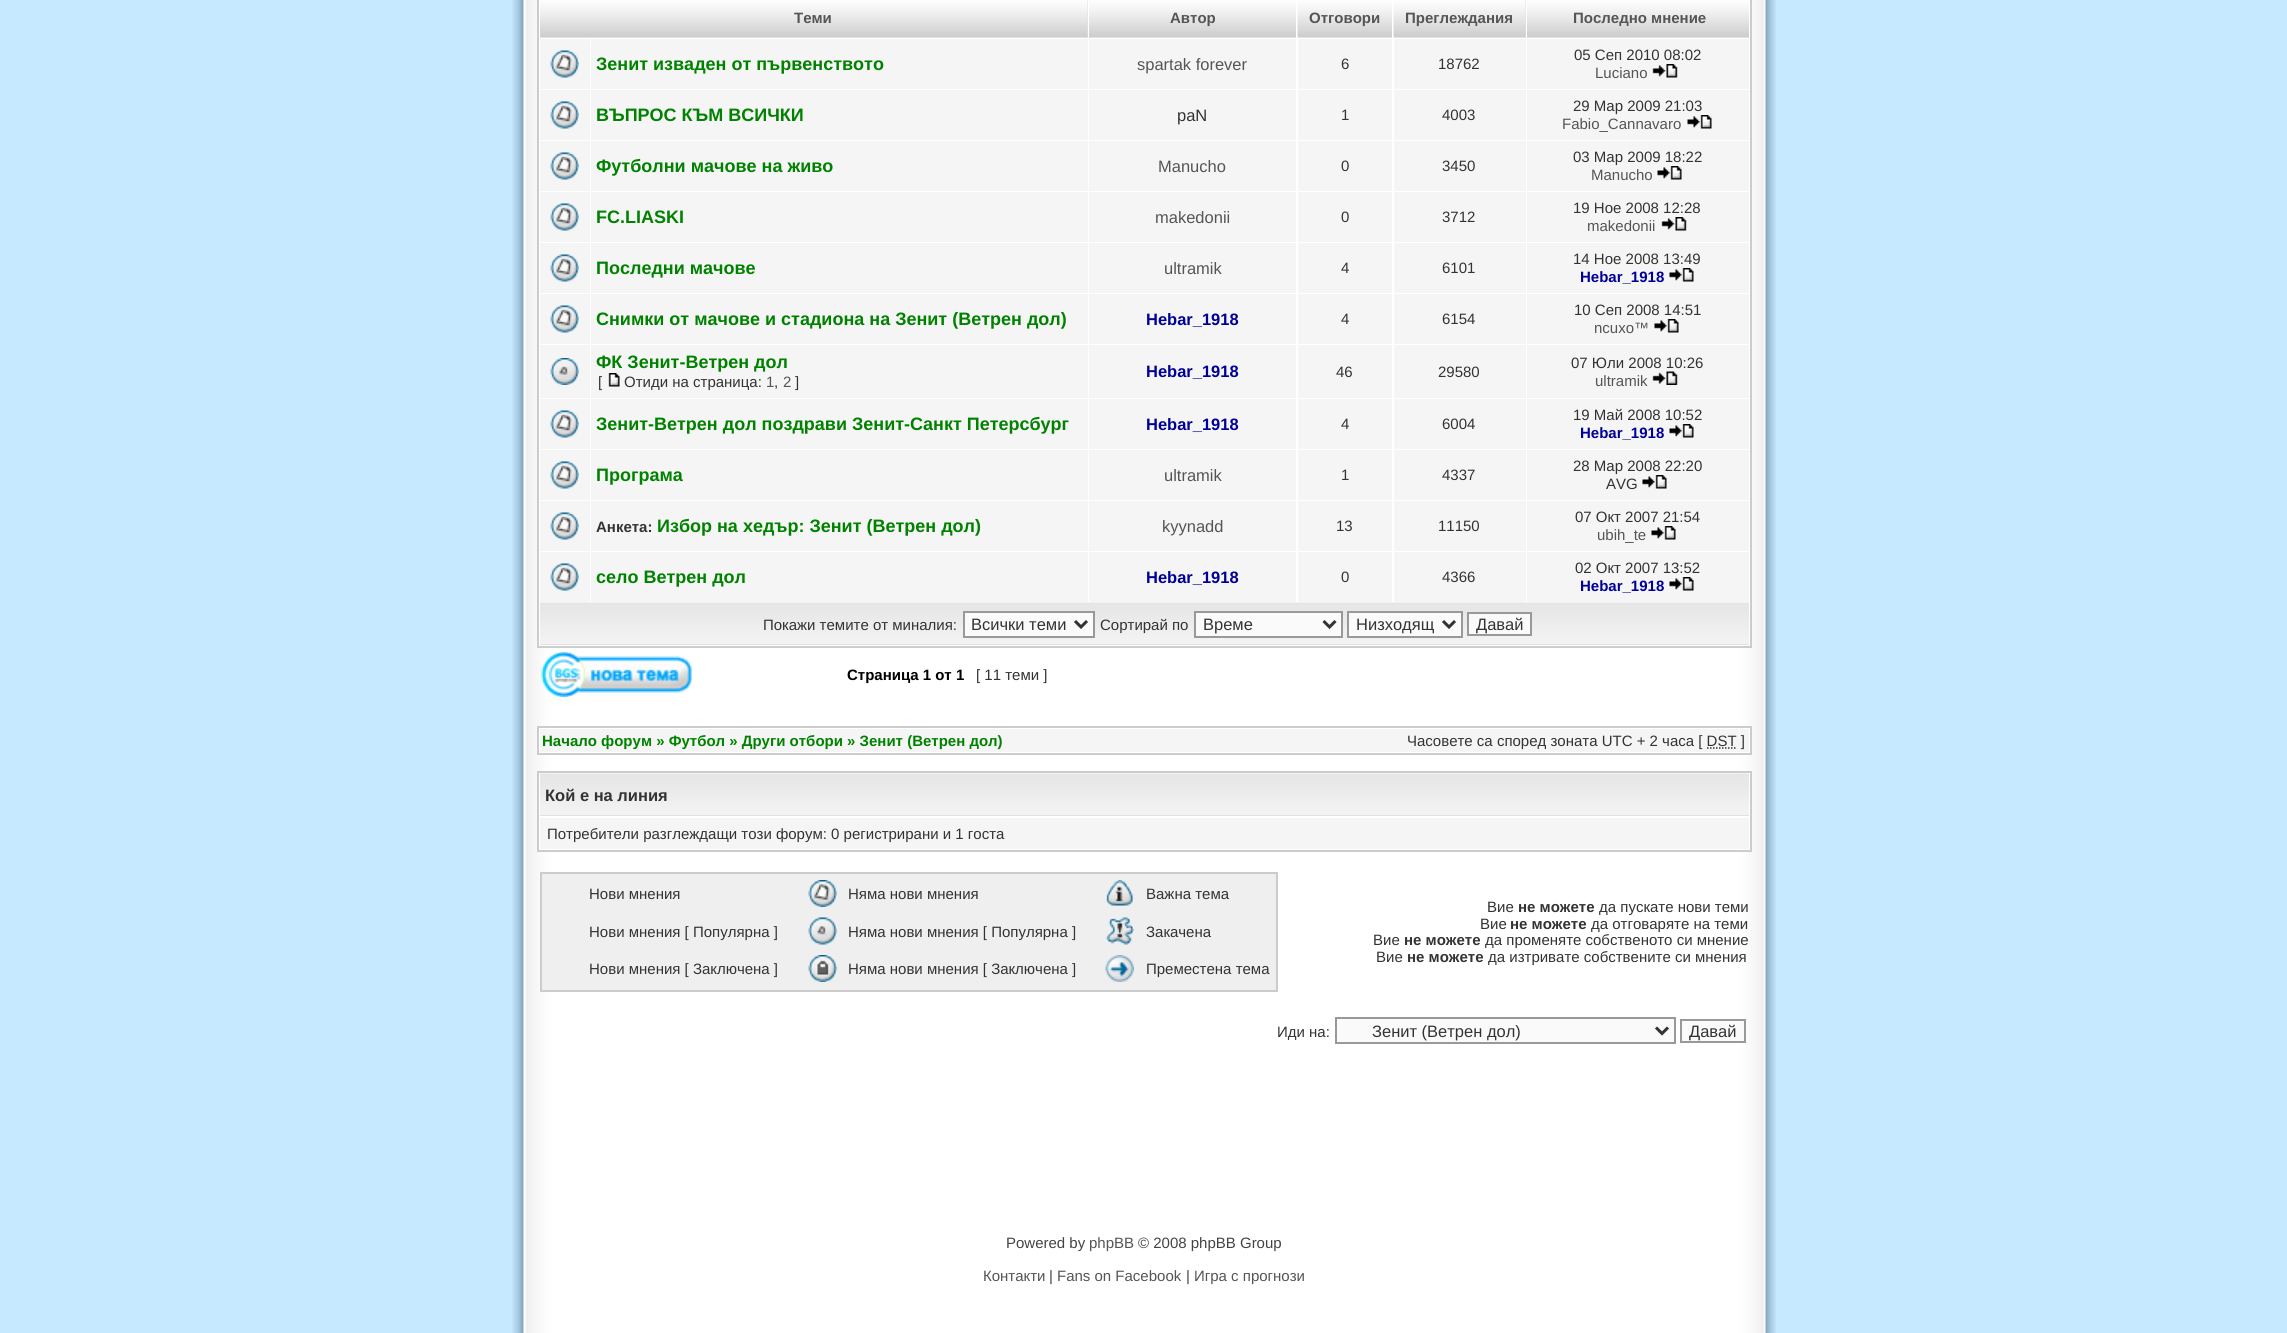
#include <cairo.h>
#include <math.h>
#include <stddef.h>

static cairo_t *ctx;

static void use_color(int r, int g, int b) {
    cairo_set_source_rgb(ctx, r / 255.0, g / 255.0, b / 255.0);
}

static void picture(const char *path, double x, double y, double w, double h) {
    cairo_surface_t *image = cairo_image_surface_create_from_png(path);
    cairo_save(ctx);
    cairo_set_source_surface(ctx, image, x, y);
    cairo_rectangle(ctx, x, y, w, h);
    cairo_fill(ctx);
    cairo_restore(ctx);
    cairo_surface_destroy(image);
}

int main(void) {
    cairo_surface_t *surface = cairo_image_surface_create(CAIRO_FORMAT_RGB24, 2287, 1333);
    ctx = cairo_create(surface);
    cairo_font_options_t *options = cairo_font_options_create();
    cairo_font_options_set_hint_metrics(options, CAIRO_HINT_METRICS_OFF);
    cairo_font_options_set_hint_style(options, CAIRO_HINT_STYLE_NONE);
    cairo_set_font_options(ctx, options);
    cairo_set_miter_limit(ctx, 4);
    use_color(198, 233, 255);
    cairo_paint(ctx);
    picture("img1.png", 512, 0, 1264, 1333);
    use_color(255, 255, 255);
    cairo_rectangle(ctx, 538, -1, 1213, 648);
    cairo_fill_preserve(ctx);
    use_color(204, 204, 204);
    cairo_stroke(ctx);
    use_color(225, 225, 225);
    cairo_rectangle(ctx, 540, 0, 548, 38);
    cairo_fill(ctx);
    picture("img2.png", 540, 0, 548, 37);
    cairo_select_font_face(ctx, "Liberation Sans", CAIRO_FONT_SLANT_NORMAL, CAIRO_FONT_WEIGHT_BOLD);
    cairo_set_font_size(ctx, 15);
    use_color(85, 85, 85);
    cairo_move_to(ctx, 794, 23);
    cairo_show_text(ctx, "Теми");
    use_color(225, 225, 225);
    cairo_rectangle(ctx, 1089, 37, 207, 1);
    cairo_fill(ctx);
    picture("img3.png", 1089, 0, 207, 37);
    use_color(85, 85, 85);
    cairo_move_to(ctx, 1170, 23);
    cairo_show_text(ctx, "Автор");
    use_color(225, 225, 225);
    cairo_rectangle(ctx, 1298, 37, 94, 1);
    cairo_fill(ctx);
    picture("img4.png", 1297, 0, 95, 37);
    use_color(85, 85, 85);
    cairo_move_to(ctx, 1309, 23);
    cairo_show_text(ctx, "Отговори");
    use_color(225, 225, 225);
    cairo_rectangle(ctx, 1394, 0, 132, 38);
    cairo_fill(ctx);
    picture("img5.png", 1393, 0, 133, 37);
    use_color(85, 85, 85);
    cairo_move_to(ctx, 1405, 23);
    cairo_show_text(ctx, "Преглеждания");
    use_color(225, 225, 225);
    cairo_rectangle(ctx, 1527, 37, 222, 1);
    cairo_fill(ctx);
    picture("img6.png", 1527, 0, 222, 37);
    use_color(85, 85, 85);
    cairo_move_to(ctx, 1573, 23);
    cairo_show_text(ctx, "Последно мнение");
    use_color(245, 245, 245);
    cairo_rectangle(ctx, 540, 39, 50, 50);
    cairo_fill(ctx);
    picture("img7.png", 550, 50, 29, 28);
    cairo_rectangle(ctx, 591, 39, 497, 50);
    cairo_fill(ctx);
    cairo_set_font_size(ctx, 18);
    use_color(0, 130, 0);
    cairo_move_to(ctx, 596, 70);
    cairo_show_text(ctx, "Зенит изваден от първенството");
    use_color(245, 245, 245);
    cairo_rectangle(ctx, 1089, 39, 207, 50);
    cairo_fill(ctx);
    cairo_select_font_face(ctx, "Liberation Sans", CAIRO_FONT_SLANT_NORMAL, CAIRO_FONT_WEIGHT_NORMAL);
    cairo_set_font_size(ctx, 16.5);
    use_color(85, 85, 85);
    cairo_move_to(ctx, 1137, 70);
    cairo_show_text(ctx, "spartak forever");
    use_color(245, 245, 245);
    cairo_rectangle(ctx, 1298, 39, 94, 50);
    cairo_fill(ctx);
    cairo_set_font_size(ctx, 15);
    use_color(51, 51, 51);
    cairo_move_to(ctx, 1341, 69);
    cairo_show_text(ctx, "6");
    use_color(245, 245, 245);
    cairo_rectangle(ctx, 1394, 39, 132, 50);
    cairo_fill(ctx);
    use_color(51, 51, 51);
    cairo_move_to(ctx, 1438, 69);
    cairo_show_text(ctx, "18762");
    use_color(245, 245, 245);
    cairo_rectangle(ctx, 1527, 39, 222, 50);
    cairo_fill(ctx);
    use_color(51, 51, 51);
    cairo_move_to(ctx, 1574, 60);
    cairo_show_text(ctx, "05 Сеп 2010 08:02");
    use_color(85, 85, 85);
    cairo_move_to(ctx, 1595, 78);
    cairo_show_text(ctx, "Luciano");
    picture("img8.png", 1652, 64, 26, 14);
    use_color(245, 245, 245);
    cairo_rectangle(ctx, 540, 90, 50, 50);
    cairo_fill(ctx);
    picture("img7.png", 550, 101, 29, 28);
    cairo_rectangle(ctx, 591, 90, 497, 50);
    cairo_fill(ctx);
    cairo_select_font_face(ctx, "Liberation Sans", CAIRO_FONT_SLANT_NORMAL, CAIRO_FONT_WEIGHT_BOLD);
    cairo_set_font_size(ctx, 18);
    use_color(0, 130, 0);
    cairo_move_to(ctx, 596, 121);
    cairo_show_text(ctx, "ВЪПРОС КЪМ ВСИЧКИ");
    use_color(245, 245, 245);
    cairo_rectangle(ctx, 1089, 90, 207, 50);
    cairo_fill(ctx);
    cairo_select_font_face(ctx, "Liberation Sans", CAIRO_FONT_SLANT_NORMAL, CAIRO_FONT_WEIGHT_NORMAL);
    cairo_set_font_size(ctx, 16.5);
    use_color(51, 51, 51);
    cairo_move_to(ctx, 1177, 121);
    cairo_show_text(ctx, "paN");
    use_color(245, 245, 245);
    cairo_rectangle(ctx, 1298, 90, 94, 50);
    cairo_fill(ctx);
    cairo_set_font_size(ctx, 15);
    use_color(51, 51, 51);
    cairo_move_to(ctx, 1341, 120);
    cairo_show_text(ctx, "1");
    use_color(245, 245, 245);
    cairo_rectangle(ctx, 1394, 90, 132, 50);
    cairo_fill(ctx);
    use_color(51, 51, 51);
    cairo_move_to(ctx, 1442, 120);
    cairo_show_text(ctx, "4003");
    use_color(245, 245, 245);
    cairo_rectangle(ctx, 1527, 90, 222, 50);
    cairo_fill(ctx);
    use_color(51, 51, 51);
    cairo_move_to(ctx, 1573, 111);
    cairo_show_text(ctx, "29 Мар 2009 21:03");
    use_color(85, 85, 85);
    cairo_move_to(ctx, 1562, 129);
    cairo_show_text(ctx, "Fabio_Cannavaro");
    picture("img9.png", 1687, 115, 25, 14);
    use_color(245, 245, 245);
    cairo_rectangle(ctx, 540, 141, 50, 50);
    cairo_fill(ctx);
    picture("img7.png", 550, 152, 29, 28);
    cairo_rectangle(ctx, 591, 141, 497, 50);
    cairo_fill(ctx);
    cairo_select_font_face(ctx, "Liberation Sans", CAIRO_FONT_SLANT_NORMAL, CAIRO_FONT_WEIGHT_BOLD);
    cairo_set_font_size(ctx, 18);
    use_color(0, 130, 0);
    cairo_move_to(ctx, 596, 172);
    cairo_show_text(ctx, "Футболни мачове на живо");
    use_color(245, 245, 245);
    cairo_rectangle(ctx, 1089, 141, 207, 50);
    cairo_fill(ctx);
    cairo_select_font_face(ctx, "Liberation Sans", CAIRO_FONT_SLANT_NORMAL, CAIRO_FONT_WEIGHT_NORMAL);
    cairo_set_font_size(ctx, 16.5);
    use_color(85, 85, 85);
    cairo_move_to(ctx, 1158, 172);
    cairo_show_text(ctx, "Manucho");
    use_color(245, 245, 245);
    cairo_rectangle(ctx, 1298, 141, 94, 50);
    cairo_fill(ctx);
    cairo_set_font_size(ctx, 15);
    use_color(51, 51, 51);
    cairo_move_to(ctx, 1341, 171);
    cairo_show_text(ctx, "0");
    use_color(245, 245, 245);
    cairo_rectangle(ctx, 1394, 141, 132, 50);
    cairo_fill(ctx);
    use_color(51, 51, 51);
    cairo_move_to(ctx, 1442, 171);
    cairo_show_text(ctx, "3450");
    use_color(245, 245, 245);
    cairo_rectangle(ctx, 1527, 141, 222, 50);
    cairo_fill(ctx);
    use_color(51, 51, 51);
    cairo_move_to(ctx, 1573, 162);
    cairo_show_text(ctx, "03 Мар 2009 18:22");
    use_color(85, 85, 85);
    cairo_move_to(ctx, 1591, 180);
    cairo_show_text(ctx, "Manucho");
    picture("img9.png", 1657, 166, 25, 14);
    use_color(245, 245, 245);
    cairo_rectangle(ctx, 540, 192, 50, 50);
    cairo_fill(ctx);
    picture("img7.png", 550, 203, 29, 28);
    cairo_rectangle(ctx, 591, 192, 497, 50);
    cairo_fill(ctx);
    cairo_select_font_face(ctx, "Liberation Sans", CAIRO_FONT_SLANT_NORMAL, CAIRO_FONT_WEIGHT_BOLD);
    cairo_set_font_size(ctx, 18);
    use_color(0, 130, 0);
    cairo_move_to(ctx, 596, 223);
    cairo_show_text(ctx, "FC.LIASKI");
    use_color(245, 245, 245);
    cairo_rectangle(ctx, 1089, 192, 207, 50);
    cairo_fill(ctx);
    cairo_select_font_face(ctx, "Liberation Sans", CAIRO_FONT_SLANT_NORMAL, CAIRO_FONT_WEIGHT_NORMAL);
    cairo_set_font_size(ctx, 16.5);
    use_color(85, 85, 85);
    cairo_move_to(ctx, 1155, 223);
    cairo_show_text(ctx, "makedonii");
    use_color(245, 245, 245);
    cairo_rectangle(ctx, 1298, 192, 94, 50);
    cairo_fill(ctx);
    cairo_set_font_size(ctx, 15);
    use_color(51, 51, 51);
    cairo_move_to(ctx, 1341, 222);
    cairo_show_text(ctx, "0");
    use_color(245, 245, 245);
    cairo_rectangle(ctx, 1394, 192, 132, 50);
    cairo_fill(ctx);
    use_color(51, 51, 51);
    cairo_move_to(ctx, 1442, 222);
    cairo_show_text(ctx, "3712");
    use_color(245, 245, 245);
    cairo_rectangle(ctx, 1527, 192, 222, 50);
    cairo_fill(ctx);
    use_color(51, 51, 51);
    cairo_move_to(ctx, 1573, 213);
    cairo_show_text(ctx, "19 Ное 2008 12:28");
    use_color(85, 85, 85);
    cairo_move_to(ctx, 1587, 231);
    cairo_show_text(ctx, "makedonii");
    picture("img8.png", 1661, 217, 26, 14);
    use_color(245, 245, 245);
    cairo_rectangle(ctx, 540, 243, 50, 50);
    cairo_fill(ctx);
    picture("img7.png", 550, 254, 29, 28);
    cairo_rectangle(ctx, 591, 243, 497, 50);
    cairo_fill(ctx);
    cairo_select_font_face(ctx, "Liberation Sans", CAIRO_FONT_SLANT_NORMAL, CAIRO_FONT_WEIGHT_BOLD);
    cairo_set_font_size(ctx, 18);
    use_color(0, 130, 0);
    cairo_move_to(ctx, 596, 274);
    cairo_show_text(ctx, "Последни мачове");
    use_color(245, 245, 245);
    cairo_rectangle(ctx, 1089, 243, 207, 50);
    cairo_fill(ctx);
    cairo_select_font_face(ctx, "Liberation Sans", CAIRO_FONT_SLANT_NORMAL, CAIRO_FONT_WEIGHT_NORMAL);
    cairo_set_font_size(ctx, 16.5);
    use_color(85, 85, 85);
    cairo_move_to(ctx, 1164, 274);
    cairo_show_text(ctx, "ultramik");
    use_color(245, 245, 245);
    cairo_rectangle(ctx, 1298, 243, 94, 50);
    cairo_fill(ctx);
    cairo_set_font_size(ctx, 15);
    use_color(51, 51, 51);
    cairo_move_to(ctx, 1341, 273);
    cairo_show_text(ctx, "4");
    use_color(245, 245, 245);
    cairo_rectangle(ctx, 1394, 243, 132, 50);
    cairo_fill(ctx);
    use_color(51, 51, 51);
    cairo_move_to(ctx, 1442, 273);
    cairo_show_text(ctx, "6101");
    use_color(245, 245, 245);
    cairo_rectangle(ctx, 1527, 243, 222, 50);
    cairo_fill(ctx);
    use_color(51, 51, 51);
    cairo_move_to(ctx, 1573, 264);
    cairo_show_text(ctx, "14 Ное 2008 13:49");
    cairo_select_font_face(ctx, "Liberation Sans", CAIRO_FONT_SLANT_NORMAL, CAIRO_FONT_WEIGHT_BOLD);
    use_color(0, 0, 153);
    cairo_move_to(ctx, 1580, 282);
    cairo_show_text(ctx, "Hebar_1918");
    picture("img9.png", 1669, 268, 25, 14);
    use_color(245, 245, 245);
    cairo_rectangle(ctx, 540, 294, 50, 50);
    cairo_fill(ctx);
    picture("img7.png", 550, 305, 29, 28);
    cairo_rectangle(ctx, 591, 294, 497, 50);
    cairo_fill(ctx);
    cairo_set_font_size(ctx, 18);
    use_color(0, 130, 0);
    cairo_move_to(ctx, 596, 325);
    cairo_show_text(ctx, "Снимки от мачове и стадиона на Зенит (Ветрен дол)");
    use_color(245, 245, 245);
    cairo_rectangle(ctx, 1089, 294, 207, 50);
    cairo_fill(ctx);
    cairo_set_font_size(ctx, 16.5);
    use_color(0, 0, 153);
    cairo_move_to(ctx, 1146, 325);
    cairo_show_text(ctx, "Hebar_1918");
    use_color(245, 245, 245);
    cairo_rectangle(ctx, 1298, 294, 94, 50);
    cairo_fill(ctx);
    cairo_select_font_face(ctx, "Liberation Sans", CAIRO_FONT_SLANT_NORMAL, CAIRO_FONT_WEIGHT_NORMAL);
    cairo_set_font_size(ctx, 15);
    use_color(51, 51, 51);
    cairo_move_to(ctx, 1341, 324);
    cairo_show_text(ctx, "4");
    use_color(245, 245, 245);
    cairo_rectangle(ctx, 1394, 294, 132, 50);
    cairo_fill(ctx);
    use_color(51, 51, 51);
    cairo_move_to(ctx, 1442, 324);
    cairo_show_text(ctx, "6154");
    use_color(245, 245, 245);
    cairo_rectangle(ctx, 1527, 294, 222, 50);
    cairo_fill(ctx);
    use_color(51, 51, 51);
    cairo_move_to(ctx, 1574, 315);
    cairo_show_text(ctx, "10 Сеп 2008 14:51");
    use_color(85, 85, 85);
    cairo_move_to(ctx, 1594, 333);
    cairo_show_text(ctx, "ncuxo™");
    picture("img9.png", 1654, 319, 25, 14);
    use_color(245, 245, 245);
    cairo_rectangle(ctx, 540, 345, 50, 53);
    cairo_fill(ctx);
    picture("img10.png", 550, 358, 29, 27);
    cairo_rectangle(ctx, 591, 345, 497, 53);
    cairo_fill(ctx);
    cairo_select_font_face(ctx, "Liberation Sans", CAIRO_FONT_SLANT_NORMAL, CAIRO_FONT_WEIGHT_BOLD);
    cairo_set_font_size(ctx, 18);
    use_color(0, 130, 0);
    cairo_move_to(ctx, 596, 368);
    cairo_show_text(ctx, "ФК Зенит-Ветрен дол");
    cairo_select_font_face(ctx, "Liberation Sans", CAIRO_FONT_SLANT_NORMAL, CAIRO_FONT_WEIGHT_NORMAL);
    cairo_set_font_size(ctx, 15);
    use_color(51, 51, 51);
    cairo_move_to(ctx, 598, 387);
    cairo_show_text(ctx, "[");
    picture("img11.png", 608, 373, 12, 14);
    cairo_move_to(ctx, 624, 387);
    cairo_show_text(ctx, "Отиди на страница:");
    use_color(85, 85, 85);
    cairo_move_to(ctx, 766, 387);
    cairo_show_text(ctx, "1");
    use_color(51, 51, 51);
    cairo_move_to(ctx, 774, 387);
    cairo_show_text(ctx, ",");
    use_color(85, 85, 85);
    cairo_move_to(ctx, 783, 387);
    cairo_show_text(ctx, "2");
    use_color(51, 51, 51);
    cairo_move_to(ctx, 795, 387);
    cairo_show_text(ctx, "]");
    use_color(245, 245, 245);
    cairo_rectangle(ctx, 1089, 345, 207, 53);
    cairo_fill(ctx);
    cairo_select_font_face(ctx, "Liberation Sans", CAIRO_FONT_SLANT_NORMAL, CAIRO_FONT_WEIGHT_BOLD);
    cairo_set_font_size(ctx, 16.5);
    use_color(0, 0, 153);
    cairo_move_to(ctx, 1146, 377);
    cairo_show_text(ctx, "Hebar_1918");
    use_color(245, 245, 245);
    cairo_rectangle(ctx, 1298, 345, 94, 53);
    cairo_fill(ctx);
    cairo_select_font_face(ctx, "Liberation Sans", CAIRO_FONT_SLANT_NORMAL, CAIRO_FONT_WEIGHT_NORMAL);
    cairo_set_font_size(ctx, 15);
    use_color(51, 51, 51);
    cairo_move_to(ctx, 1336, 377);
    cairo_show_text(ctx, "46");
    use_color(245, 245, 245);
    cairo_rectangle(ctx, 1394, 345, 132, 53);
    cairo_fill(ctx);
    use_color(51, 51, 51);
    cairo_move_to(ctx, 1438, 377);
    cairo_show_text(ctx, "29580");
    use_color(245, 245, 245);
    cairo_rectangle(ctx, 1527, 345, 222, 53);
    cairo_fill(ctx);
    use_color(51, 51, 51);
    cairo_move_to(ctx, 1571, 368);
    cairo_show_text(ctx, "07 Юли 2008 10:26");
    use_color(85, 85, 85);
    cairo_move_to(ctx, 1595, 386);
    cairo_show_text(ctx, "ultramik");
    picture("img12.png", 1652, 371, 26, 14);
    use_color(245, 245, 245);
    cairo_rectangle(ctx, 540, 399, 50, 50);
    cairo_fill(ctx);
    picture("img7.png", 550, 410, 29, 28);
    cairo_rectangle(ctx, 591, 399, 497, 50);
    cairo_fill(ctx);
    cairo_select_font_face(ctx, "Liberation Sans", CAIRO_FONT_SLANT_NORMAL, CAIRO_FONT_WEIGHT_BOLD);
    cairo_set_font_size(ctx, 18);
    use_color(0, 130, 0);
    cairo_move_to(ctx, 596, 430);
    cairo_show_text(ctx, "Зенит-Ветрен дол поздрави Зенит-Санкт Петерсбург");
    use_color(245, 245, 245);
    cairo_rectangle(ctx, 1089, 399, 207, 50);
    cairo_fill(ctx);
    cairo_set_font_size(ctx, 16.5);
    use_color(0, 0, 153);
    cairo_move_to(ctx, 1146, 430);
    cairo_show_text(ctx, "Hebar_1918");
    use_color(245, 245, 245);
    cairo_rectangle(ctx, 1298, 399, 94, 50);
    cairo_fill(ctx);
    cairo_select_font_face(ctx, "Liberation Sans", CAIRO_FONT_SLANT_NORMAL, CAIRO_FONT_WEIGHT_NORMAL);
    cairo_set_font_size(ctx, 15);
    use_color(51, 51, 51);
    cairo_move_to(ctx, 1341, 429);
    cairo_show_text(ctx, "4");
    use_color(245, 245, 245);
    cairo_rectangle(ctx, 1394, 399, 132, 50);
    cairo_fill(ctx);
    use_color(51, 51, 51);
    cairo_move_to(ctx, 1442, 429);
    cairo_show_text(ctx, "6004");
    use_color(245, 245, 245);
    cairo_rectangle(ctx, 1527, 399, 222, 50);
    cairo_fill(ctx);
    use_color(51, 51, 51);
    cairo_move_to(ctx, 1573, 420);
    cairo_show_text(ctx, "19 Май 2008 10:52");
    cairo_select_font_face(ctx, "Liberation Sans", CAIRO_FONT_SLANT_NORMAL, CAIRO_FONT_WEIGHT_BOLD);
    use_color(0, 0, 153);
    cairo_move_to(ctx, 1580, 438);
    cairo_show_text(ctx, "Hebar_1918");
    picture("img9.png", 1669, 424, 25, 14);
    use_color(245, 245, 245);
    cairo_rectangle(ctx, 540, 450, 50, 50);
    cairo_fill(ctx);
    picture("img7.png", 550, 461, 29, 28);
    cairo_rectangle(ctx, 591, 450, 497, 50);
    cairo_fill(ctx);
    cairo_set_font_size(ctx, 18);
    use_color(0, 130, 0);
    cairo_move_to(ctx, 596, 481);
    cairo_show_text(ctx, "Програма");
    use_color(245, 245, 245);
    cairo_rectangle(ctx, 1089, 450, 207, 50);
    cairo_fill(ctx);
    cairo_select_font_face(ctx, "Liberation Sans", CAIRO_FONT_SLANT_NORMAL, CAIRO_FONT_WEIGHT_NORMAL);
    cairo_set_font_size(ctx, 16.5);
    use_color(85, 85, 85);
    cairo_move_to(ctx, 1164, 481);
    cairo_show_text(ctx, "ultramik");
    use_color(245, 245, 245);
    cairo_rectangle(ctx, 1298, 450, 94, 50);
    cairo_fill(ctx);
    cairo_set_font_size(ctx, 15);
    use_color(51, 51, 51);
    cairo_move_to(ctx, 1341, 480);
    cairo_show_text(ctx, "1");
    use_color(245, 245, 245);
    cairo_rectangle(ctx, 1394, 450, 132, 50);
    cairo_fill(ctx);
    use_color(51, 51, 51);
    cairo_move_to(ctx, 1442, 480);
    cairo_show_text(ctx, "4337");
    use_color(245, 245, 245);
    cairo_rectangle(ctx, 1527, 450, 222, 50);
    cairo_fill(ctx);
    use_color(51, 51, 51);
    cairo_move_to(ctx, 1573, 471);
    cairo_show_text(ctx, "28 Мар 2008 22:20");
    cairo_move_to(ctx, 1606, 489);
    cairo_show_text(ctx, "AVG");
    picture("img9.png", 1642, 475, 25, 14);
    use_color(245, 245, 245);
    cairo_rectangle(ctx, 540, 501, 50, 50);
    cairo_fill(ctx);
    picture("img7.png", 550, 512, 29, 28);
    cairo_rectangle(ctx, 591, 501, 497, 50);
    cairo_fill(ctx);
    cairo_select_font_face(ctx, "Liberation Sans", CAIRO_FONT_SLANT_NORMAL, CAIRO_FONT_WEIGHT_BOLD);
    use_color(51, 51, 51);
    cairo_move_to(ctx, 596, 532);
    cairo_show_text(ctx, "Анкета:");
    cairo_set_font_size(ctx, 18);
    use_color(0, 130, 0);
    cairo_move_to(ctx, 657, 532);
    cairo_show_text(ctx, "Избор на хедър: Зенит (Ветрен дол)");
    use_color(245, 245, 245);
    cairo_rectangle(ctx, 1089, 501, 207, 50);
    cairo_fill(ctx);
    cairo_select_font_face(ctx, "Liberation Sans", CAIRO_FONT_SLANT_NORMAL, CAIRO_FONT_WEIGHT_NORMAL);
    cairo_set_font_size(ctx, 16.5);
    use_color(85, 85, 85);
    cairo_move_to(ctx, 1162, 532);
    cairo_show_text(ctx, "kyynadd");
    use_color(245, 245, 245);
    cairo_rectangle(ctx, 1298, 501, 94, 50);
    cairo_fill(ctx);
    cairo_set_font_size(ctx, 15);
    use_color(51, 51, 51);
    cairo_move_to(ctx, 1336, 531);
    cairo_show_text(ctx, "13");
    use_color(245, 245, 245);
    cairo_rectangle(ctx, 1394, 501, 132, 50);
    cairo_fill(ctx);
    use_color(51, 51, 51);
    cairo_move_to(ctx, 1438, 531);
    cairo_show_text(ctx, "11150");
    use_color(245, 245, 245);
    cairo_rectangle(ctx, 1527, 501, 222, 50);
    cairo_fill(ctx);
    use_color(51, 51, 51);
    cairo_move_to(ctx, 1575, 522);
    cairo_show_text(ctx, "07 Окт 2007 21:54");
    use_color(85, 85, 85);
    cairo_move_to(ctx, 1597, 540);
    cairo_show_text(ctx, "ubih_te");
    picture("img9.png", 1651, 526, 25, 14);
    use_color(245, 245, 245);
    cairo_rectangle(ctx, 540, 552, 50, 50);
    cairo_fill(ctx);
    picture("img7.png", 550, 563, 29, 28);
    cairo_rectangle(ctx, 591, 552, 497, 50);
    cairo_fill(ctx);
    cairo_select_font_face(ctx, "Liberation Sans", CAIRO_FONT_SLANT_NORMAL, CAIRO_FONT_WEIGHT_BOLD);
    cairo_set_font_size(ctx, 18);
    use_color(0, 130, 0);
    cairo_move_to(ctx, 596, 583);
    cairo_show_text(ctx, "село Ветрен дол");
    use_color(245, 245, 245);
    cairo_rectangle(ctx, 1089, 552, 207, 50);
    cairo_fill(ctx);
    cairo_set_font_size(ctx, 16.5);
    use_color(0, 0, 153);
    cairo_move_to(ctx, 1146, 583);
    cairo_show_text(ctx, "Hebar_1918");
    use_color(245, 245, 245);
    cairo_rectangle(ctx, 1298, 552, 94, 50);
    cairo_fill(ctx);
    cairo_select_font_face(ctx, "Liberation Sans", CAIRO_FONT_SLANT_NORMAL, CAIRO_FONT_WEIGHT_NORMAL);
    cairo_set_font_size(ctx, 15);
    use_color(51, 51, 51);
    cairo_move_to(ctx, 1341, 582);
    cairo_show_text(ctx, "0");
    use_color(245, 245, 245);
    cairo_rectangle(ctx, 1394, 552, 132, 50);
    cairo_fill(ctx);
    use_color(51, 51, 51);
    cairo_move_to(ctx, 1442, 582);
    cairo_show_text(ctx, "4366");
    use_color(245, 245, 245);
    cairo_rectangle(ctx, 1527, 552, 222, 50);
    cairo_fill(ctx);
    use_color(51, 51, 51);
    cairo_move_to(ctx, 1575, 573);
    cairo_show_text(ctx, "02 Окт 2007 13:52");
    cairo_select_font_face(ctx, "Liberation Sans", CAIRO_FONT_SLANT_NORMAL, CAIRO_FONT_WEIGHT_BOLD);
    use_color(0, 0, 153);
    cairo_move_to(ctx, 1580, 591);
    cairo_show_text(ctx, "Hebar_1918");
    picture("img9.png", 1669, 577, 25, 14);
    use_color(199, 208, 215);
    cairo_rectangle(ctx, 540, 644, 1209, 1);
    cairo_fill(ctx);
    picture("img13.png", 540, 602, 1209, 43);
    cairo_select_font_face(ctx, "Liberation Sans", CAIRO_FONT_SLANT_NORMAL, CAIRO_FONT_WEIGHT_NORMAL);
    use_color(51, 51, 51);
    cairo_move_to(ctx, 763, 630);
    cairo_show_text(ctx, "Покажи темите от миналия:");
    use_color(250, 250, 250);
    cairo_rectangle(ctx, 964, 612, 130, 25);
    cairo_fill_preserve(ctx);
    use_color(153, 153, 153);
    cairo_stroke(ctx);
    cairo_new_path(ctx);
    cairo_move_to(ctx, 1075, 621);
    cairo_line_to(ctx, 1081, 627);
    cairo_line_to(ctx, 1087, 621);
    use_color(51, 51, 51);
    cairo_set_line_width(ctx, 3);
    cairo_stroke(ctx);
    cairo_set_font_size(ctx, 16.5);
    cairo_move_to(ctx, 971, 630);
    cairo_show_text(ctx, "Всички теми");
    cairo_set_font_size(ctx, 15);
    cairo_move_to(ctx, 1100, 630);
    cairo_show_text(ctx, "Сортирай по");
    use_color(250, 250, 250);
    cairo_rectangle(ctx, 1195, 612, 147, 25);
    cairo_fill_preserve(ctx);
    use_color(153, 153, 153);
    cairo_set_line_width(ctx, 2);
    cairo_stroke(ctx);
    cairo_new_path(ctx);
    cairo_move_to(ctx, 1323.5, 621);
    cairo_line_to(ctx, 1329.5, 627);
    cairo_line_to(ctx, 1335.5, 621);
    use_color(51, 51, 51);
    cairo_set_line_width(ctx, 3);
    cairo_stroke(ctx);
    cairo_set_font_size(ctx, 16.5);
    cairo_move_to(ctx, 1203, 630);
    cairo_show_text(ctx, "Време");
    use_color(250, 250, 250);
    cairo_rectangle(ctx, 1348, 612, 114, 25);
    cairo_fill_preserve(ctx);
    use_color(153, 153, 153);
    cairo_set_line_width(ctx, 2);
    cairo_stroke(ctx);
    cairo_new_path(ctx);
    cairo_move_to(ctx, 1443, 621);
    cairo_line_to(ctx, 1449, 627);
    cairo_line_to(ctx, 1455, 621);
    use_color(51, 51, 51);
    cairo_set_line_width(ctx, 3);
    cairo_stroke(ctx);
    cairo_move_to(ctx, 1356, 630);
    cairo_show_text(ctx, "Низходящ");
    use_color(250, 250, 250);
    cairo_rectangle(ctx, 1468, 613, 63, 22);
    cairo_fill_preserve(ctx);
    use_color(153, 153, 153);
    cairo_set_line_width(ctx, 2);
    cairo_stroke(ctx);
    use_color(51, 51, 51);
    cairo_move_to(ctx, 1476, 630);
    cairo_show_text(ctx, "Давай");
    picture("img14.png", 541, 652, 151, 45);
    cairo_select_font_face(ctx, "Liberation Sans", CAIRO_FONT_SLANT_NORMAL, CAIRO_FONT_WEIGHT_BOLD);
    cairo_set_font_size(ctx, 15);
    use_color(0, 0, 0);
    cairo_move_to(ctx, 847, 680);
    cairo_show_text(ctx, "Страница 1 от 1");
    cairo_select_font_face(ctx, "Liberation Sans", CAIRO_FONT_SLANT_NORMAL, CAIRO_FONT_WEIGHT_NORMAL);
    use_color(51, 51, 51);
    cairo_move_to(ctx, 976, 680);
    cairo_show_text(ctx, "[ 11 теми ]");
    use_color(255, 255, 255);
    cairo_rectangle(ctx, 538, 727, 1213, 27);
    cairo_fill_preserve(ctx);
    use_color(204, 204, 204);
    cairo_stroke(ctx);
    use_color(245, 245, 245);
    cairo_rectangle(ctx, 540, 729, 1209, 23);
    cairo_fill(ctx);
    cairo_select_font_face(ctx, "Liberation Sans", CAIRO_FONT_SLANT_NORMAL, CAIRO_FONT_WEIGHT_BOLD);
    use_color(0, 130, 0);
    cairo_move_to(ctx, 542, 746);
    cairo_show_text(ctx, "Начало форум » Футбол » Други отбори » Зенит (Ветрен дол)");
    cairo_select_font_face(ctx, "Liberation Sans", CAIRO_FONT_SLANT_NORMAL, CAIRO_FONT_WEIGHT_NORMAL);
    use_color(51, 51, 51);
    cairo_move_to(ctx, 1407, 746);
    cairo_show_text(ctx, "Часовете са според зоната UTC + 2 часа [ DST ]");
    cairo_new_path(ctx);
    cairo_move_to(ctx, 1707, 748);
    cairo_line_to(ctx, 1737, 748);
    cairo_set_line_width(ctx, 1.5);
    cairo_set_dash(ctx, (double[]){1.5, 1.5}, 2, 0);
    cairo_stroke(ctx);
    use_color(255, 255, 255);
    cairo_rectangle(ctx, 538, 772, 1213, 79);
    cairo_fill_preserve(ctx);
    use_color(204, 204, 204);
    cairo_set_line_width(ctx, 2);
    cairo_set_dash(ctx, NULL, 0, 0);
    cairo_stroke(ctx);
    use_color(199, 208, 215);
    cairo_rectangle(ctx, 540, 815, 1209, 1);
    cairo_fill(ctx);
    picture("img13.png", 540, 773, 1209, 43);
    cairo_select_font_face(ctx, "Liberation Sans", CAIRO_FONT_SLANT_NORMAL, CAIRO_FONT_WEIGHT_BOLD);
    cairo_set_font_size(ctx, 16.5);
    use_color(51, 51, 51);
    cairo_move_to(ctx, 545, 801);
    cairo_show_text(ctx, "Кой е на линия");
    use_color(245, 245, 245);
    cairo_rectangle(ctx, 540, 818, 1209, 31);
    cairo_fill(ctx);
    cairo_select_font_face(ctx, "Liberation Sans", CAIRO_FONT_SLANT_NORMAL, CAIRO_FONT_WEIGHT_NORMAL);
    cairo_set_font_size(ctx, 15);
    use_color(51, 51, 51);
    cairo_move_to(ctx, 547, 839);
    cairo_show_text(ctx, "Потребители разглеждащи този форум: 0 регистрирани и 1 госта");
    use_color(239, 239, 239);
    cairo_rectangle(ctx, 541, 873, 736, 118);
    cairo_fill_preserve(ctx);
    use_color(204, 204, 204);
    cairo_stroke(ctx);
    use_color(51, 51, 51);
    cairo_move_to(ctx, 589, 899);
    cairo_show_text(ctx, "Нови мнения");
    picture("img15.png", 808, 880, 29, 27);
    cairo_move_to(ctx, 848, 899);
    cairo_show_text(ctx, "Няма нови мнения");
    picture("img16.png", 1105, 880, 29, 26);
    cairo_move_to(ctx, 1146, 899);
    cairo_show_text(ctx, "Важна тема");
    cairo_move_to(ctx, 589, 937);
    cairo_show_text(ctx, "Нови мнения [ Популярна ]");
    picture("img17.png", 808, 917, 29, 28);
    cairo_move_to(ctx, 848, 937);
    cairo_show_text(ctx, "Няма нови мнения [ Популярна ]");
    picture("img18.png", 1106, 917, 28, 28);
    cairo_move_to(ctx, 1146, 937);
    cairo_show_text(ctx, "Закачена");
    cairo_move_to(ctx, 589, 974);
    cairo_show_text(ctx, "Нови мнения [ Заключена ]");
    picture("img19.png", 808, 955, 29, 27);
    cairo_move_to(ctx, 848, 974);
    cairo_show_text(ctx, "Няма нови мнения [ Заключена ]");
    picture("img20.png", 1105, 955, 29, 27);
    cairo_move_to(ctx, 1146, 974);
    cairo_show_text(ctx, "Преместена тема");
    cairo_move_to(ctx, 1487, 912);
    cairo_show_text(ctx, "Вие");
    cairo_select_font_face(ctx, "Liberation Sans", CAIRO_FONT_SLANT_NORMAL, CAIRO_FONT_WEIGHT_BOLD);
    cairo_move_to(ctx, 1518, 912);
    cairo_show_text(ctx, "не можете");
    cairo_select_font_face(ctx, "Liberation Sans", CAIRO_FONT_SLANT_NORMAL, CAIRO_FONT_WEIGHT_NORMAL);
    cairo_move_to(ctx, 1599, 912);
    cairo_show_text(ctx, "да пускате нови теми");
    cairo_move_to(ctx, 1480, 929);
    cairo_show_text(ctx, "Вие");
    cairo_select_font_face(ctx, "Liberation Sans", CAIRO_FONT_SLANT_NORMAL, CAIRO_FONT_WEIGHT_BOLD);
    cairo_move_to(ctx, 1510, 929);
    cairo_show_text(ctx, "не можете");
    cairo_select_font_face(ctx, "Liberation Sans", CAIRO_FONT_SLANT_NORMAL, CAIRO_FONT_WEIGHT_NORMAL);
    cairo_move_to(ctx, 1591, 929);
    cairo_show_text(ctx, "да отговаряте на теми");
    cairo_move_to(ctx, 1373, 945);
    cairo_show_text(ctx, "Вие");
    cairo_select_font_face(ctx, "Liberation Sans", CAIRO_FONT_SLANT_NORMAL, CAIRO_FONT_WEIGHT_BOLD);
    cairo_move_to(ctx, 1404, 945);
    cairo_show_text(ctx, "не можете");
    cairo_select_font_face(ctx, "Liberation Sans", CAIRO_FONT_SLANT_NORMAL, CAIRO_FONT_WEIGHT_NORMAL);
    cairo_move_to(ctx, 1485, 945);
    cairo_show_text(ctx, "да променяте собственото си мнение");
    cairo_move_to(ctx, 1376, 962);
    cairo_show_text(ctx, "Вие");
    cairo_select_font_face(ctx, "Liberation Sans", CAIRO_FONT_SLANT_NORMAL, CAIRO_FONT_WEIGHT_BOLD);
    cairo_move_to(ctx, 1407, 962);
    cairo_show_text(ctx, "не можете");
    cairo_select_font_face(ctx, "Liberation Sans", CAIRO_FONT_SLANT_NORMAL, CAIRO_FONT_WEIGHT_NORMAL);
    cairo_move_to(ctx, 1488, 962);
    cairo_show_text(ctx, "да изтривате собствените си мнения");
    cairo_move_to(ctx, 1277, 1037);
    cairo_show_text(ctx, "Иди на:");
    use_color(250, 250, 250);
    cairo_rectangle(ctx, 1336, 1018, 339, 25);
    cairo_fill_preserve(ctx);
    use_color(153, 153, 153);
    cairo_stroke(ctx);
    cairo_new_path(ctx);
    cairo_move_to(ctx, 1656, 1027.5);
    cairo_line_to(ctx, 1662, 1033.5);
    cairo_line_to(ctx, 1668, 1027.5);
    use_color(51, 51, 51);
    cairo_set_line_width(ctx, 3);
    cairo_stroke(ctx);
    cairo_set_font_size(ctx, 16.5);
    cairo_move_to(ctx, 1372, 1037);
    cairo_show_text(ctx, "Зенит (Ветрен дол)");
    use_color(250, 250, 250);
    cairo_rectangle(ctx, 1681, 1020, 64, 22);
    cairo_fill_preserve(ctx);
    use_color(153, 153, 153);
    cairo_set_line_width(ctx, 2);
    cairo_stroke(ctx);
    use_color(51, 51, 51);
    cairo_move_to(ctx, 1689, 1037);
    cairo_show_text(ctx, "Давай");
    cairo_set_font_size(ctx, 15);
    use_color(68, 68, 68);
    cairo_move_to(ctx, 1006, 1248);
    cairo_show_text(ctx, "Powered by");
    use_color(85, 85, 85);
    cairo_move_to(ctx, 1089, 1248);
    cairo_show_text(ctx, "phpBB");
    use_color(68, 68, 68);
    cairo_move_to(ctx, 1138, 1248);
    cairo_show_text(ctx, "© 2008 phpBB Group");
    use_color(85, 85, 85);
    cairo_move_to(ctx, 983, 1281);
    cairo_show_text(ctx, "Контакти");
    use_color(68, 68, 68);
    cairo_move_to(ctx, 1049, 1281);
    cairo_show_text(ctx, "|");
    use_color(85, 85, 85);
    cairo_move_to(ctx, 1057, 1281);
    cairo_show_text(ctx, "Fans on Facebook");
    use_color(68, 68, 68);
    cairo_move_to(ctx, 1186, 1281);
    cairo_show_text(ctx, "|");
    use_color(85, 85, 85);
    cairo_move_to(ctx, 1194, 1281);
    cairo_show_text(ctx, "Игра с прогнози");
    cairo_surface_write_to_png(surface, "result.png");
    cairo_font_options_destroy(options);
    cairo_destroy(ctx);
    cairo_surface_destroy(surface);
    return 0;
}
